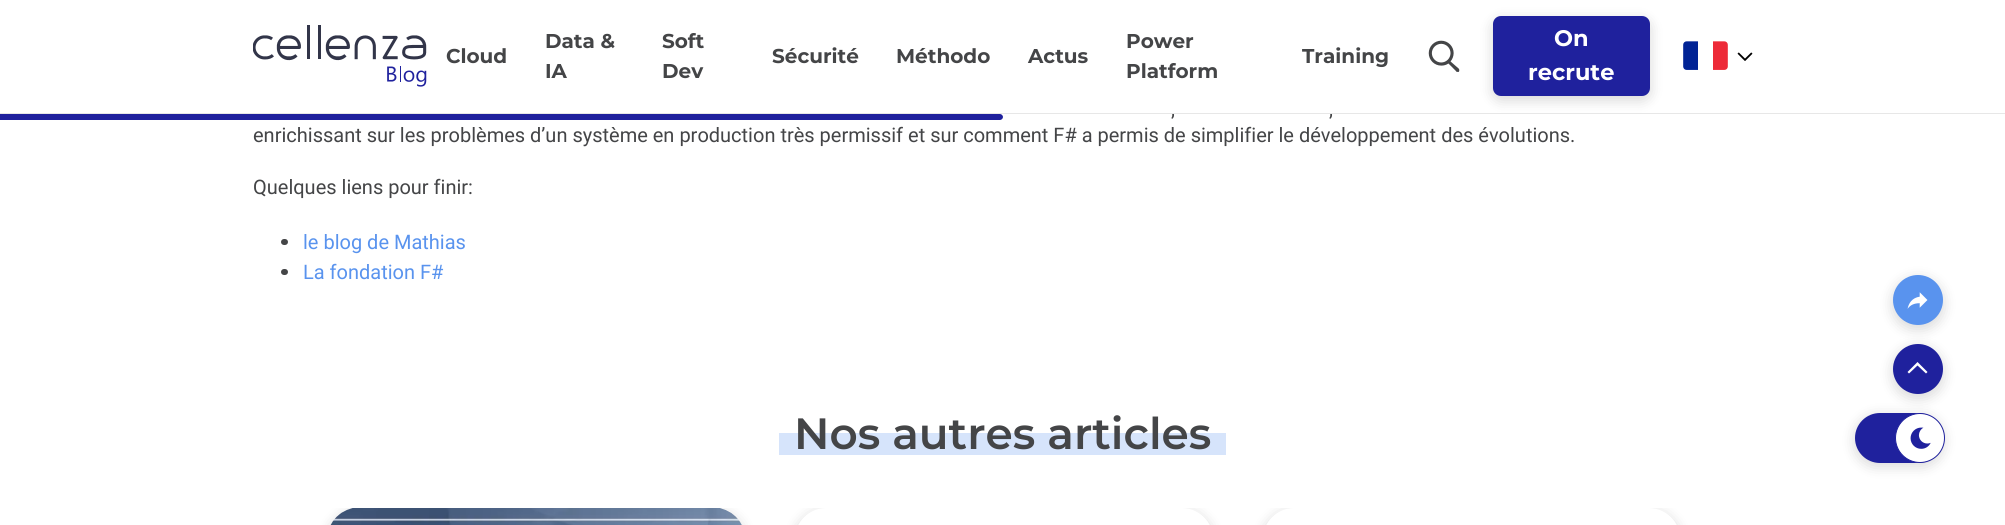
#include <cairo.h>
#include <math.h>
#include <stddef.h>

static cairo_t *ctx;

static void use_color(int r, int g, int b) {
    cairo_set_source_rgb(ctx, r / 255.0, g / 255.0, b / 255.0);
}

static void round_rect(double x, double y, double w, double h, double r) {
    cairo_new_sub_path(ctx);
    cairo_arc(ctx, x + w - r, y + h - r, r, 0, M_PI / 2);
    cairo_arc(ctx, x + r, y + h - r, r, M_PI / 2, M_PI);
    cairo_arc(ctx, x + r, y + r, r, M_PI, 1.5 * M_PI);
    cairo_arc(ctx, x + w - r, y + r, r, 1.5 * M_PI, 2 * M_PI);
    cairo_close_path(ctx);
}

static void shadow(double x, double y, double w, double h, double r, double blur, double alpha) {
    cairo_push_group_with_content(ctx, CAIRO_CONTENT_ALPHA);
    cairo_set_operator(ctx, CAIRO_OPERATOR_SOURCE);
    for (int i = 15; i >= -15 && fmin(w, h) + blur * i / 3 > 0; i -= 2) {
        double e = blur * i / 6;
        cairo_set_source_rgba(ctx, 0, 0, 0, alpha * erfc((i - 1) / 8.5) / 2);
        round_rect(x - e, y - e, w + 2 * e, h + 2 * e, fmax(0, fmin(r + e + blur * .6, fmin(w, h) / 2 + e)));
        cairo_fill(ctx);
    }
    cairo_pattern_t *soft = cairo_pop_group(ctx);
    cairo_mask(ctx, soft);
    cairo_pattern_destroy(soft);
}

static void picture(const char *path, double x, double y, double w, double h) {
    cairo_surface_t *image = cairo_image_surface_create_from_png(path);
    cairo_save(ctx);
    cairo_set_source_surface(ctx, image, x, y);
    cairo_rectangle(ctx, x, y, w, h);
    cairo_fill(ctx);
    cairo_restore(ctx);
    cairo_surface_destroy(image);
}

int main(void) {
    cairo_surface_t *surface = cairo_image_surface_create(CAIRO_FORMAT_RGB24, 2005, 525);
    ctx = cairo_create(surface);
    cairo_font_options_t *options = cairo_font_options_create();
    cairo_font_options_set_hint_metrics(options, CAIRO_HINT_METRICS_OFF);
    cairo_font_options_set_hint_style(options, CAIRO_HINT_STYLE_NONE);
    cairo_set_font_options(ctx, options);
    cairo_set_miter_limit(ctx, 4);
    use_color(255, 255, 255);
    cairo_paint(ctx);
    cairo_select_font_face(ctx, "Roboto", CAIRO_FONT_SLANT_NORMAL, CAIRO_FONT_WEIGHT_NORMAL);
    cairo_set_font_size(ctx, 20);
    use_color(68, 69, 71);
    cairo_move_to(ctx, 1171, 116);
    cairo_show_text(ctx, ",");
    cairo_move_to(ctx, 1329, 116);
    cairo_show_text(ctx, ",");
    use_color(231, 231, 231);
    cairo_rectangle(ctx, 0, 113, 2005, 1);
    cairo_fill(ctx);
    picture("img1.png", 253, 25, 174, 62);
    cairo_select_font_face(ctx, "Montserrat", CAIRO_FONT_SLANT_NORMAL, CAIRO_FONT_WEIGHT_BOLD);
    use_color(68, 69, 71);
    cairo_move_to(ctx, 446, 63);
    cairo_show_text(ctx, "Cloud");
    cairo_move_to(ctx, 545, 48);
    cairo_show_text(ctx, "Data &");
    cairo_move_to(ctx, 545, 78);
    cairo_show_text(ctx, "IA");
    cairo_move_to(ctx, 662, 48);
    cairo_show_text(ctx, "Soft");
    cairo_move_to(ctx, 662, 78);
    cairo_show_text(ctx, "Dev");
    cairo_move_to(ctx, 772, 63);
    cairo_show_text(ctx, "Sécurité");
    cairo_move_to(ctx, 896, 63);
    cairo_show_text(ctx, "Méthodo");
    cairo_move_to(ctx, 1028, 63);
    cairo_show_text(ctx, "Actus");
    cairo_move_to(ctx, 1126, 48);
    cairo_show_text(ctx, "Power");
    cairo_move_to(ctx, 1126, 78);
    cairo_show_text(ctx, "Platform");
    cairo_move_to(ctx, 1302, 63);
    cairo_show_text(ctx, "Training");
    picture("img2.png", 1428, 40, 32, 32);
    use_color(0, 0, 0);
    shadow(1493, 20, 157, 80, 8, 7, 0.16);
    use_color(31, 33, 157);
    round_rect(1493, 16, 157, 80, 8);
    cairo_fill(ctx);
    cairo_set_font_size(ctx, 22.5);
    use_color(255, 255, 255);
    cairo_move_to(ctx, 1554, 46);
    cairo_show_text(ctx, "On");
    cairo_move_to(ctx, 1528, 80);
    cairo_show_text(ctx, "recrute");
    picture("img3.png", 1683, 41, 45, 29);
    picture("img4.png", 1737, 52, 16, 9);
    use_color(31, 33, 157);
    cairo_new_path(ctx);
    cairo_move_to(ctx, 0, 114);
    cairo_line_to(ctx, 1000, 114);
    cairo_curve_to(ctx, 1001.5, 114, 1003, 115.5, 1003, 117);
    cairo_curve_to(ctx, 1003, 118.5, 1001.5, 120, 1000, 120);
    cairo_line_to(ctx, 0, 120);
    cairo_close_path(ctx);
    cairo_fill(ctx);
    cairo_select_font_face(ctx, "Roboto", CAIRO_FONT_SLANT_NORMAL, CAIRO_FONT_WEIGHT_NORMAL);
    cairo_set_font_size(ctx, 20);
    use_color(68, 69, 71);
    cairo_move_to(ctx, 253, 142);
    cairo_show_text(ctx, "enrichissant sur les problèmes d’un système en production très permissif et sur comment F# a permis de simplifier le développement des évolutions.");
    cairo_move_to(ctx, 253, 194);
    cairo_show_text(ctx, "Quelques liens pour finir:");
    round_rect(281, 239, 7, 6, 3);
    cairo_fill(ctx);
    use_color(89, 147, 238);
    cairo_move_to(ctx, 303, 249);
    cairo_show_text(ctx, "le blog de Mathias");
    use_color(68, 69, 71);
    round_rect(281, 269, 7, 6, 3);
    cairo_fill(ctx);
    use_color(89, 147, 238);
    cairo_move_to(ctx, 303, 279);
    cairo_show_text(ctx, "La fondation F#");
    use_color(214, 228, 251);
    cairo_rectangle(ctx, 779, 433, 447, 22);
    cairo_fill(ctx);
    cairo_select_font_face(ctx, "Montserrat SemiBold", CAIRO_FONT_SLANT_NORMAL, CAIRO_FONT_WEIGHT_NORMAL);
    cairo_set_font_size(ctx, 43.75);
    use_color(68, 69, 71);
    cairo_move_to(ctx, 794, 449);
    cairo_show_text(ctx, "Nos autres articles");
    cairo_save(ctx);
    cairo_rectangle(ctx, 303, 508, 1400, 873);
    cairo_clip(ctx);
    use_color(0, 0, 0);
    shadow(328, 511, 417, 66, 31, 7, 0.16);
    cairo_restore(ctx);
    picture("img5.png", 330, 508, 412, 17);
    cairo_save(ctx);
    cairo_rectangle(ctx, 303, 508, 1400, 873);
    cairo_clip(ctx);
    use_color(0, 0, 0);
    shadow(795, 511, 418, 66, 31, 7, 0.16);
    cairo_restore(ctx);
    use_color(255, 255, 255);
    round_rect(795, 508, 418, 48, 31);
    cairo_fill(ctx);
    cairo_save(ctx);
    cairo_rectangle(ctx, 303, 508, 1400, 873);
    cairo_clip(ctx);
    use_color(0, 0, 0);
    shadow(1263, 511, 417, 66, 31, 7, 0.16);
    cairo_restore(ctx);
    round_rect(1263, 508, 417, 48, 31);
    cairo_fill(ctx);
    use_color(0, 0, 0);
    shadow(1893, 348, 50, 50, 25, 7, 0.16);
    use_color(31, 33, 157);
    cairo_arc(ctx, 1918, 369, 25, 0, 2 * M_PI);
    cairo_fill(ctx);
    use_color(0, 0, 0);
    shadow(1893, 279, 50, 50, 25, 7, 0.16);
    use_color(89, 147, 238);
    cairo_arc(ctx, 1918, 300, 25, 0, 2 * M_PI);
    cairo_fill(ctx);
    picture("img6.png", 1907, 292, 21, 17);
    use_color(255, 255, 255);
    cairo_new_path(ctx);
    cairo_move_to(ctx, 1907.5, 372);
    cairo_line_to(ctx, 1917.5, 362);
    cairo_line_to(ctx, 1927.5, 372);
    cairo_line_to(ctx, 1926, 373.5);
    cairo_line_to(ctx, 1917.5, 365.5);
    cairo_line_to(ctx, 1909, 373.5);
    cairo_close_path(ctx);
    cairo_fill(ctx);
    use_color(0, 0, 0);
    shadow(1855, 416, 88, 50, 25, 7, 0.16);
    use_color(31, 33, 157);
    round_rect(1856.5, 414.5, 85, 47, 23.5);
    cairo_fill_preserve(ctx);
    cairo_set_line_width(ctx, 3);
    cairo_stroke(ctx);
    use_color(255, 255, 255);
    cairo_arc(ctx, 1920, 438, 24.5, 0, 2 * M_PI);
    cairo_fill_preserve(ctx);
    use_color(31, 33, 157);
    cairo_set_line_width(ctx, 1);
    cairo_stroke(ctx);
    picture("img7.png", 1910, 427, 21, 22);
    cairo_surface_write_to_png(surface, "result.png");
    cairo_font_options_destroy(options);
    cairo_destroy(ctx);
    cairo_surface_destroy(surface);
    return 0;
}
